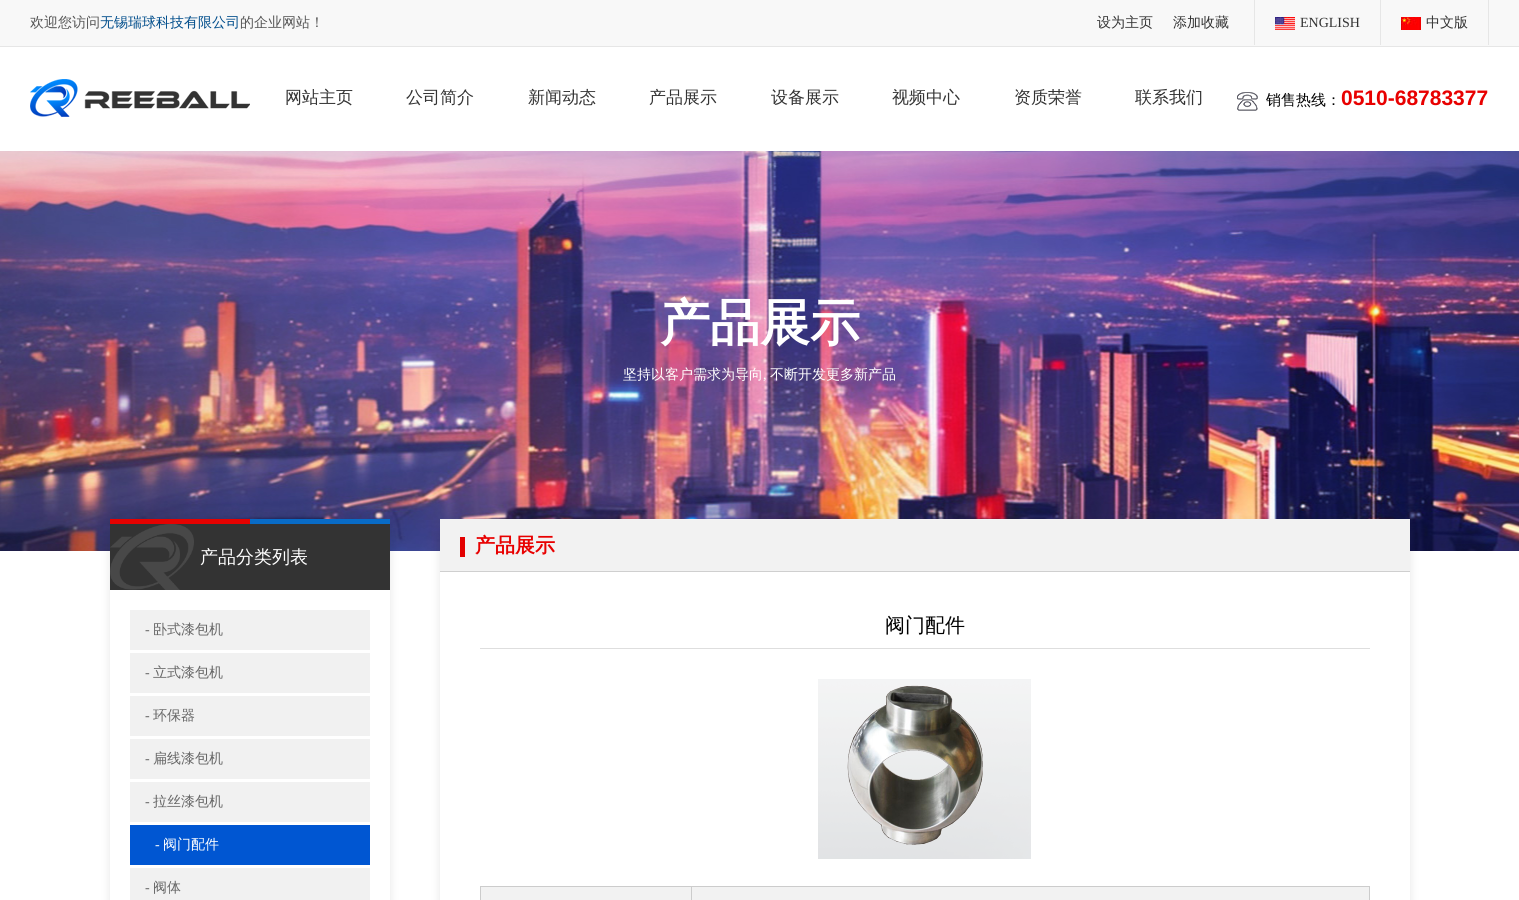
#include <cairo.h>
#include <math.h>
#include <stddef.h>

static cairo_t *ctx;

static void use_color(int r, int g, int b) {
    cairo_set_source_rgb(ctx, r / 255.0, g / 255.0, b / 255.0);
}

static void round_rect(double x, double y, double w, double h, double r) {
    cairo_new_sub_path(ctx);
    cairo_arc(ctx, x + w - r, y + h - r, r, 0, M_PI / 2);
    cairo_arc(ctx, x + r, y + h - r, r, M_PI / 2, M_PI);
    cairo_arc(ctx, x + r, y + r, r, M_PI, 1.5 * M_PI);
    cairo_arc(ctx, x + w - r, y + r, r, 1.5 * M_PI, 2 * M_PI);
    cairo_close_path(ctx);
}

static void shadow(double x, double y, double w, double h, double r, double blur, double alpha) {
    cairo_push_group_with_content(ctx, CAIRO_CONTENT_ALPHA);
    cairo_set_operator(ctx, CAIRO_OPERATOR_SOURCE);
    for (int i = 15; i >= -15 && fmin(w, h) + blur * i / 3 > 0; i -= 2) {
        double e = blur * i / 6;
        cairo_set_source_rgba(ctx, 0, 0, 0, alpha * erfc((i - 1) / 8.5) / 2);
        round_rect(x - e, y - e, w + 2 * e, h + 2 * e, fmax(0, fmin(r + e + blur * .6, fmin(w, h) / 2 + e)));
        cairo_fill(ctx);
    }
    cairo_pattern_t *soft = cairo_pop_group(ctx);
    cairo_mask(ctx, soft);
    cairo_pattern_destroy(soft);
}

static void picture(const char *path, double x, double y, double w, double h) {
    cairo_surface_t *image = cairo_image_surface_create_from_png(path);
    cairo_save(ctx);
    cairo_set_source_surface(ctx, image, x, y);
    cairo_rectangle(ctx, x, y, w, h);
    cairo_fill(ctx);
    cairo_restore(ctx);
    cairo_surface_destroy(image);
}

int main(void) {
    cairo_surface_t *surface = cairo_image_surface_create(CAIRO_FORMAT_RGB24, 1519, 900);
    ctx = cairo_create(surface);
    cairo_font_options_t *options = cairo_font_options_create();
    cairo_font_options_set_hint_metrics(options, CAIRO_HINT_METRICS_OFF);
    cairo_font_options_set_hint_style(options, CAIRO_HINT_STYLE_NONE);
    cairo_set_font_options(ctx, options);
    cairo_set_miter_limit(ctx, 4);
    use_color(255, 255, 255);
    cairo_paint(ctx);
    use_color(248, 248, 248);
    cairo_rectangle(ctx, 0, 0, 1519, 46);
    cairo_fill(ctx);
    use_color(230, 230, 230);
    cairo_rectangle(ctx, 0, 46, 1519, 1);
    cairo_fill(ctx);
    cairo_select_font_face(ctx, "WenQuanYi Zen Hei Medium", CAIRO_FONT_SLANT_NORMAL, CAIRO_FONT_WEIGHT_NORMAL);
    cairo_set_font_size(ctx, 14);
    use_color(85, 85, 85);
    cairo_move_to(ctx, 30, 27);
    cairo_show_text(ctx, "欢迎您访问");
    use_color(0, 77, 139);
    cairo_move_to(ctx, 100, 27);
    cairo_show_text(ctx, "无锡瑞球科技有限公司");
    use_color(85, 85, 85);
    cairo_move_to(ctx, 240, 27);
    cairo_show_text(ctx, "的企业网站！");
    use_color(51, 51, 51);
    cairo_move_to(ctx, 1097, 27);
    cairo_show_text(ctx, "设为主页");
    cairo_move_to(ctx, 1173, 27);
    cairo_show_text(ctx, "添加收藏");
    use_color(230, 230, 230);
    cairo_rectangle(ctx, 1254, 0, 1, 45);
    cairo_fill(ctx);
    picture("img1.png", 1275, 17, 20, 13);
    cairo_select_font_face(ctx, "Liberation Serif", CAIRO_FONT_SLANT_NORMAL, CAIRO_FONT_WEIGHT_NORMAL);
    use_color(51, 51, 51);
    cairo_move_to(ctx, 1300, 27);
    cairo_show_text(ctx, "ENGLISH");
    use_color(230, 230, 230);
    cairo_rectangle(ctx, 1488, 0, 1, 45);
    cairo_fill(ctx);
    cairo_rectangle(ctx, 1380, 0, 1, 45);
    cairo_fill(ctx);
    picture("img2.png", 1401, 17, 20, 13);
    cairo_select_font_face(ctx, "WenQuanYi Zen Hei Medium", CAIRO_FONT_SLANT_NORMAL, CAIRO_FONT_WEIGHT_NORMAL);
    use_color(51, 51, 51);
    cairo_move_to(ctx, 1426, 27);
    cairo_show_text(ctx, "中文版");
    picture("img3.png", 30, 79, 220, 38);
    cairo_set_font_size(ctx, 17);
    cairo_move_to(ctx, 285, 103);
    cairo_show_text(ctx, "网站主页");
    cairo_move_to(ctx, 406, 103);
    cairo_show_text(ctx, "公司简介");
    cairo_move_to(ctx, 528, 103);
    cairo_show_text(ctx, "新闻动态");
    cairo_move_to(ctx, 649, 103);
    cairo_show_text(ctx, "产品展示");
    cairo_move_to(ctx, 771, 103);
    cairo_show_text(ctx, "设备展示");
    cairo_move_to(ctx, 892, 103);
    cairo_show_text(ctx, "视频中心");
    cairo_move_to(ctx, 1014, 103);
    cairo_show_text(ctx, "资质荣誉");
    cairo_move_to(ctx, 1135, 103);
    cairo_show_text(ctx, "联系我们");
    picture("img4.png", 1237, 92, 21, 19);
    cairo_set_font_size(ctx, 15);
    use_color(0, 0, 0);
    cairo_move_to(ctx, 1266, 105);
    cairo_show_text(ctx, "销售热线：");
    cairo_select_font_face(ctx, "Liberation Sans", CAIRO_FONT_SLANT_NORMAL, CAIRO_FONT_WEIGHT_BOLD);
    cairo_set_font_size(ctx, 21);
    use_color(232, 0, 0);
    cairo_move_to(ctx, 1341, 105);
    cairo_show_text(ctx, "0510-68783377");
    picture("img5.png", 0, 151, 1519, 400);
    cairo_select_font_face(ctx, "WenQuanYi Zen Hei", CAIRO_FONT_SLANT_NORMAL, CAIRO_FONT_WEIGHT_BOLD);
    cairo_set_font_size(ctx, 50);
    use_color(255, 255, 255);
    cairo_move_to(ctx, 660, 340);
    cairo_show_text(ctx, "产品展示");
    cairo_select_font_face(ctx, "WenQuanYi Zen Hei Medium", CAIRO_FONT_SLANT_NORMAL, CAIRO_FONT_WEIGHT_NORMAL);
    cairo_set_font_size(ctx, 14);
    cairo_move_to(ctx, 623, 379);
    cairo_show_text(ctx, "坚持以客户需求为导向");
    cairo_select_font_face(ctx, "Liberation Serif", CAIRO_FONT_SLANT_NORMAL, CAIRO_FONT_WEIGHT_NORMAL);
    cairo_move_to(ctx, 763, 379);
    cairo_show_text(ctx, ",");
    cairo_select_font_face(ctx, "WenQuanYi Zen Hei Medium", CAIRO_FONT_SLANT_NORMAL, CAIRO_FONT_WEIGHT_NORMAL);
    cairo_move_to(ctx, 770, 379);
    cairo_show_text(ctx, "不断开发更多新产品");
    use_color(0, 0, 0);
    shadow(110, 524, 280, 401, 10, 5, 0.1);
    use_color(255, 255, 255);
    cairo_rectangle(ctx, 110, 590, 280, 310);
    cairo_fill(ctx);
    use_color(8, 107, 198);
    cairo_rectangle(ctx, 250, 519, 140, 5);
    cairo_fill(ctx);
    use_color(229, 1, 0);
    cairo_rectangle(ctx, 110, 519, 140, 5);
    cairo_fill(ctx);
    use_color(51, 51, 51);
    cairo_rectangle(ctx, 110, 524, 280, 66);
    cairo_fill(ctx);
    picture("img6.png", 110, 524, 84, 66);
    cairo_set_font_size(ctx, 18);
    use_color(255, 255, 255);
    cairo_move_to(ctx, 200, 563);
    cairo_show_text(ctx, "产品分类列表");
    use_color(241, 241, 241);
    cairo_rectangle(ctx, 130, 610, 240, 40);
    cairo_fill(ctx);
    cairo_select_font_face(ctx, "Liberation Serif", CAIRO_FONT_SLANT_NORMAL, CAIRO_FONT_WEIGHT_NORMAL);
    cairo_set_font_size(ctx, 14);
    use_color(102, 102, 102);
    cairo_move_to(ctx, 145, 634);
    cairo_show_text(ctx, "-");
    cairo_select_font_face(ctx, "WenQuanYi Zen Hei Medium", CAIRO_FONT_SLANT_NORMAL, CAIRO_FONT_WEIGHT_NORMAL);
    cairo_move_to(ctx, 153, 634);
    cairo_show_text(ctx, "卧式漆包机");
    use_color(241, 241, 241);
    cairo_rectangle(ctx, 130, 653, 240, 40);
    cairo_fill(ctx);
    cairo_select_font_face(ctx, "Liberation Serif", CAIRO_FONT_SLANT_NORMAL, CAIRO_FONT_WEIGHT_NORMAL);
    use_color(102, 102, 102);
    cairo_move_to(ctx, 145, 677);
    cairo_show_text(ctx, "-");
    cairo_select_font_face(ctx, "WenQuanYi Zen Hei Medium", CAIRO_FONT_SLANT_NORMAL, CAIRO_FONT_WEIGHT_NORMAL);
    cairo_move_to(ctx, 153, 677);
    cairo_show_text(ctx, "立式漆包机");
    use_color(241, 241, 241);
    cairo_rectangle(ctx, 130, 696, 240, 40);
    cairo_fill(ctx);
    cairo_select_font_face(ctx, "Liberation Serif", CAIRO_FONT_SLANT_NORMAL, CAIRO_FONT_WEIGHT_NORMAL);
    use_color(102, 102, 102);
    cairo_move_to(ctx, 145, 720);
    cairo_show_text(ctx, "-");
    cairo_select_font_face(ctx, "WenQuanYi Zen Hei Medium", CAIRO_FONT_SLANT_NORMAL, CAIRO_FONT_WEIGHT_NORMAL);
    cairo_move_to(ctx, 153, 720);
    cairo_show_text(ctx, "环保器");
    use_color(241, 241, 241);
    cairo_rectangle(ctx, 130, 739, 240, 40);
    cairo_fill(ctx);
    cairo_select_font_face(ctx, "Liberation Serif", CAIRO_FONT_SLANT_NORMAL, CAIRO_FONT_WEIGHT_NORMAL);
    use_color(102, 102, 102);
    cairo_move_to(ctx, 145, 763);
    cairo_show_text(ctx, "-");
    cairo_select_font_face(ctx, "WenQuanYi Zen Hei Medium", CAIRO_FONT_SLANT_NORMAL, CAIRO_FONT_WEIGHT_NORMAL);
    cairo_move_to(ctx, 153, 763);
    cairo_show_text(ctx, "扁线漆包机");
    use_color(241, 241, 241);
    cairo_rectangle(ctx, 130, 782, 240, 40);
    cairo_fill(ctx);
    cairo_select_font_face(ctx, "Liberation Serif", CAIRO_FONT_SLANT_NORMAL, CAIRO_FONT_WEIGHT_NORMAL);
    use_color(102, 102, 102);
    cairo_move_to(ctx, 145, 806);
    cairo_show_text(ctx, "-");
    cairo_select_font_face(ctx, "WenQuanYi Zen Hei Medium", CAIRO_FONT_SLANT_NORMAL, CAIRO_FONT_WEIGHT_NORMAL);
    cairo_move_to(ctx, 153, 806);
    cairo_show_text(ctx, "拉丝漆包机");
    use_color(0, 86, 210);
    cairo_rectangle(ctx, 130, 825, 240, 40);
    cairo_fill(ctx);
    cairo_select_font_face(ctx, "Liberation Serif", CAIRO_FONT_SLANT_NORMAL, CAIRO_FONT_WEIGHT_NORMAL);
    use_color(255, 255, 255);
    cairo_move_to(ctx, 155, 849);
    cairo_show_text(ctx, "-");
    cairo_select_font_face(ctx, "WenQuanYi Zen Hei Medium", CAIRO_FONT_SLANT_NORMAL, CAIRO_FONT_WEIGHT_NORMAL);
    cairo_move_to(ctx, 163, 849);
    cairo_show_text(ctx, "阀门配件");
    use_color(241, 241, 241);
    cairo_rectangle(ctx, 130, 868, 240, 32);
    cairo_fill(ctx);
    cairo_select_font_face(ctx, "Liberation Serif", CAIRO_FONT_SLANT_NORMAL, CAIRO_FONT_WEIGHT_NORMAL);
    use_color(102, 102, 102);
    cairo_move_to(ctx, 145, 892);
    cairo_show_text(ctx, "-");
    cairo_select_font_face(ctx, "WenQuanYi Zen Hei Medium", CAIRO_FONT_SLANT_NORMAL, CAIRO_FONT_WEIGHT_NORMAL);
    cairo_move_to(ctx, 153, 892);
    cairo_show_text(ctx, "阀体");
    use_color(0, 0, 0);
    shadow(440, 524, 970, 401, 10, 5, 0.1);
    use_color(255, 255, 255);
    cairo_rectangle(ctx, 440, 572, 970, 328);
    cairo_fill(ctx);
    use_color(242, 242, 242);
    cairo_rectangle(ctx, 440, 519, 970, 52);
    cairo_fill(ctx);
    use_color(207, 207, 207);
    cairo_rectangle(ctx, 440, 571, 970, 1);
    cairo_fill(ctx);
    use_color(227, 0, 0);
    cairo_rectangle(ctx, 460, 537, 5, 20);
    cairo_fill(ctx);
    cairo_select_font_face(ctx, "WenQuanYi Zen Hei", CAIRO_FONT_SLANT_NORMAL, CAIRO_FONT_WEIGHT_BOLD);
    cairo_set_font_size(ctx, 20);
    use_color(232, 0, 0);
    cairo_move_to(ctx, 475, 552);
    cairo_show_text(ctx, "产品展示");
    use_color(222, 222, 222);
    cairo_rectangle(ctx, 480, 648, 890, 1);
    cairo_fill(ctx);
    cairo_select_font_face(ctx, "WenQuanYi Zen Hei Medium", CAIRO_FONT_SLANT_NORMAL, CAIRO_FONT_WEIGHT_NORMAL);
    use_color(0, 0, 0);
    cairo_move_to(ctx, 885, 632);
    cairo_show_text(ctx, "阀门配件");
    picture("img7.png", 818, 679, 213, 180);
    use_color(204, 204, 204);
    cairo_rectangle(ctx, 480, 886, 890, 14);
    cairo_fill(ctx);
    use_color(242, 242, 242);
    cairo_rectangle(ctx, 481, 887, 210, 13);
    cairo_fill(ctx);
    cairo_rectangle(ctx, 692, 887, 677, 13);
    cairo_fill(ctx);
    cairo_surface_write_to_png(surface, "result.png");
    cairo_font_options_destroy(options);
    cairo_destroy(ctx);
    cairo_surface_destroy(surface);
    return 0;
}
